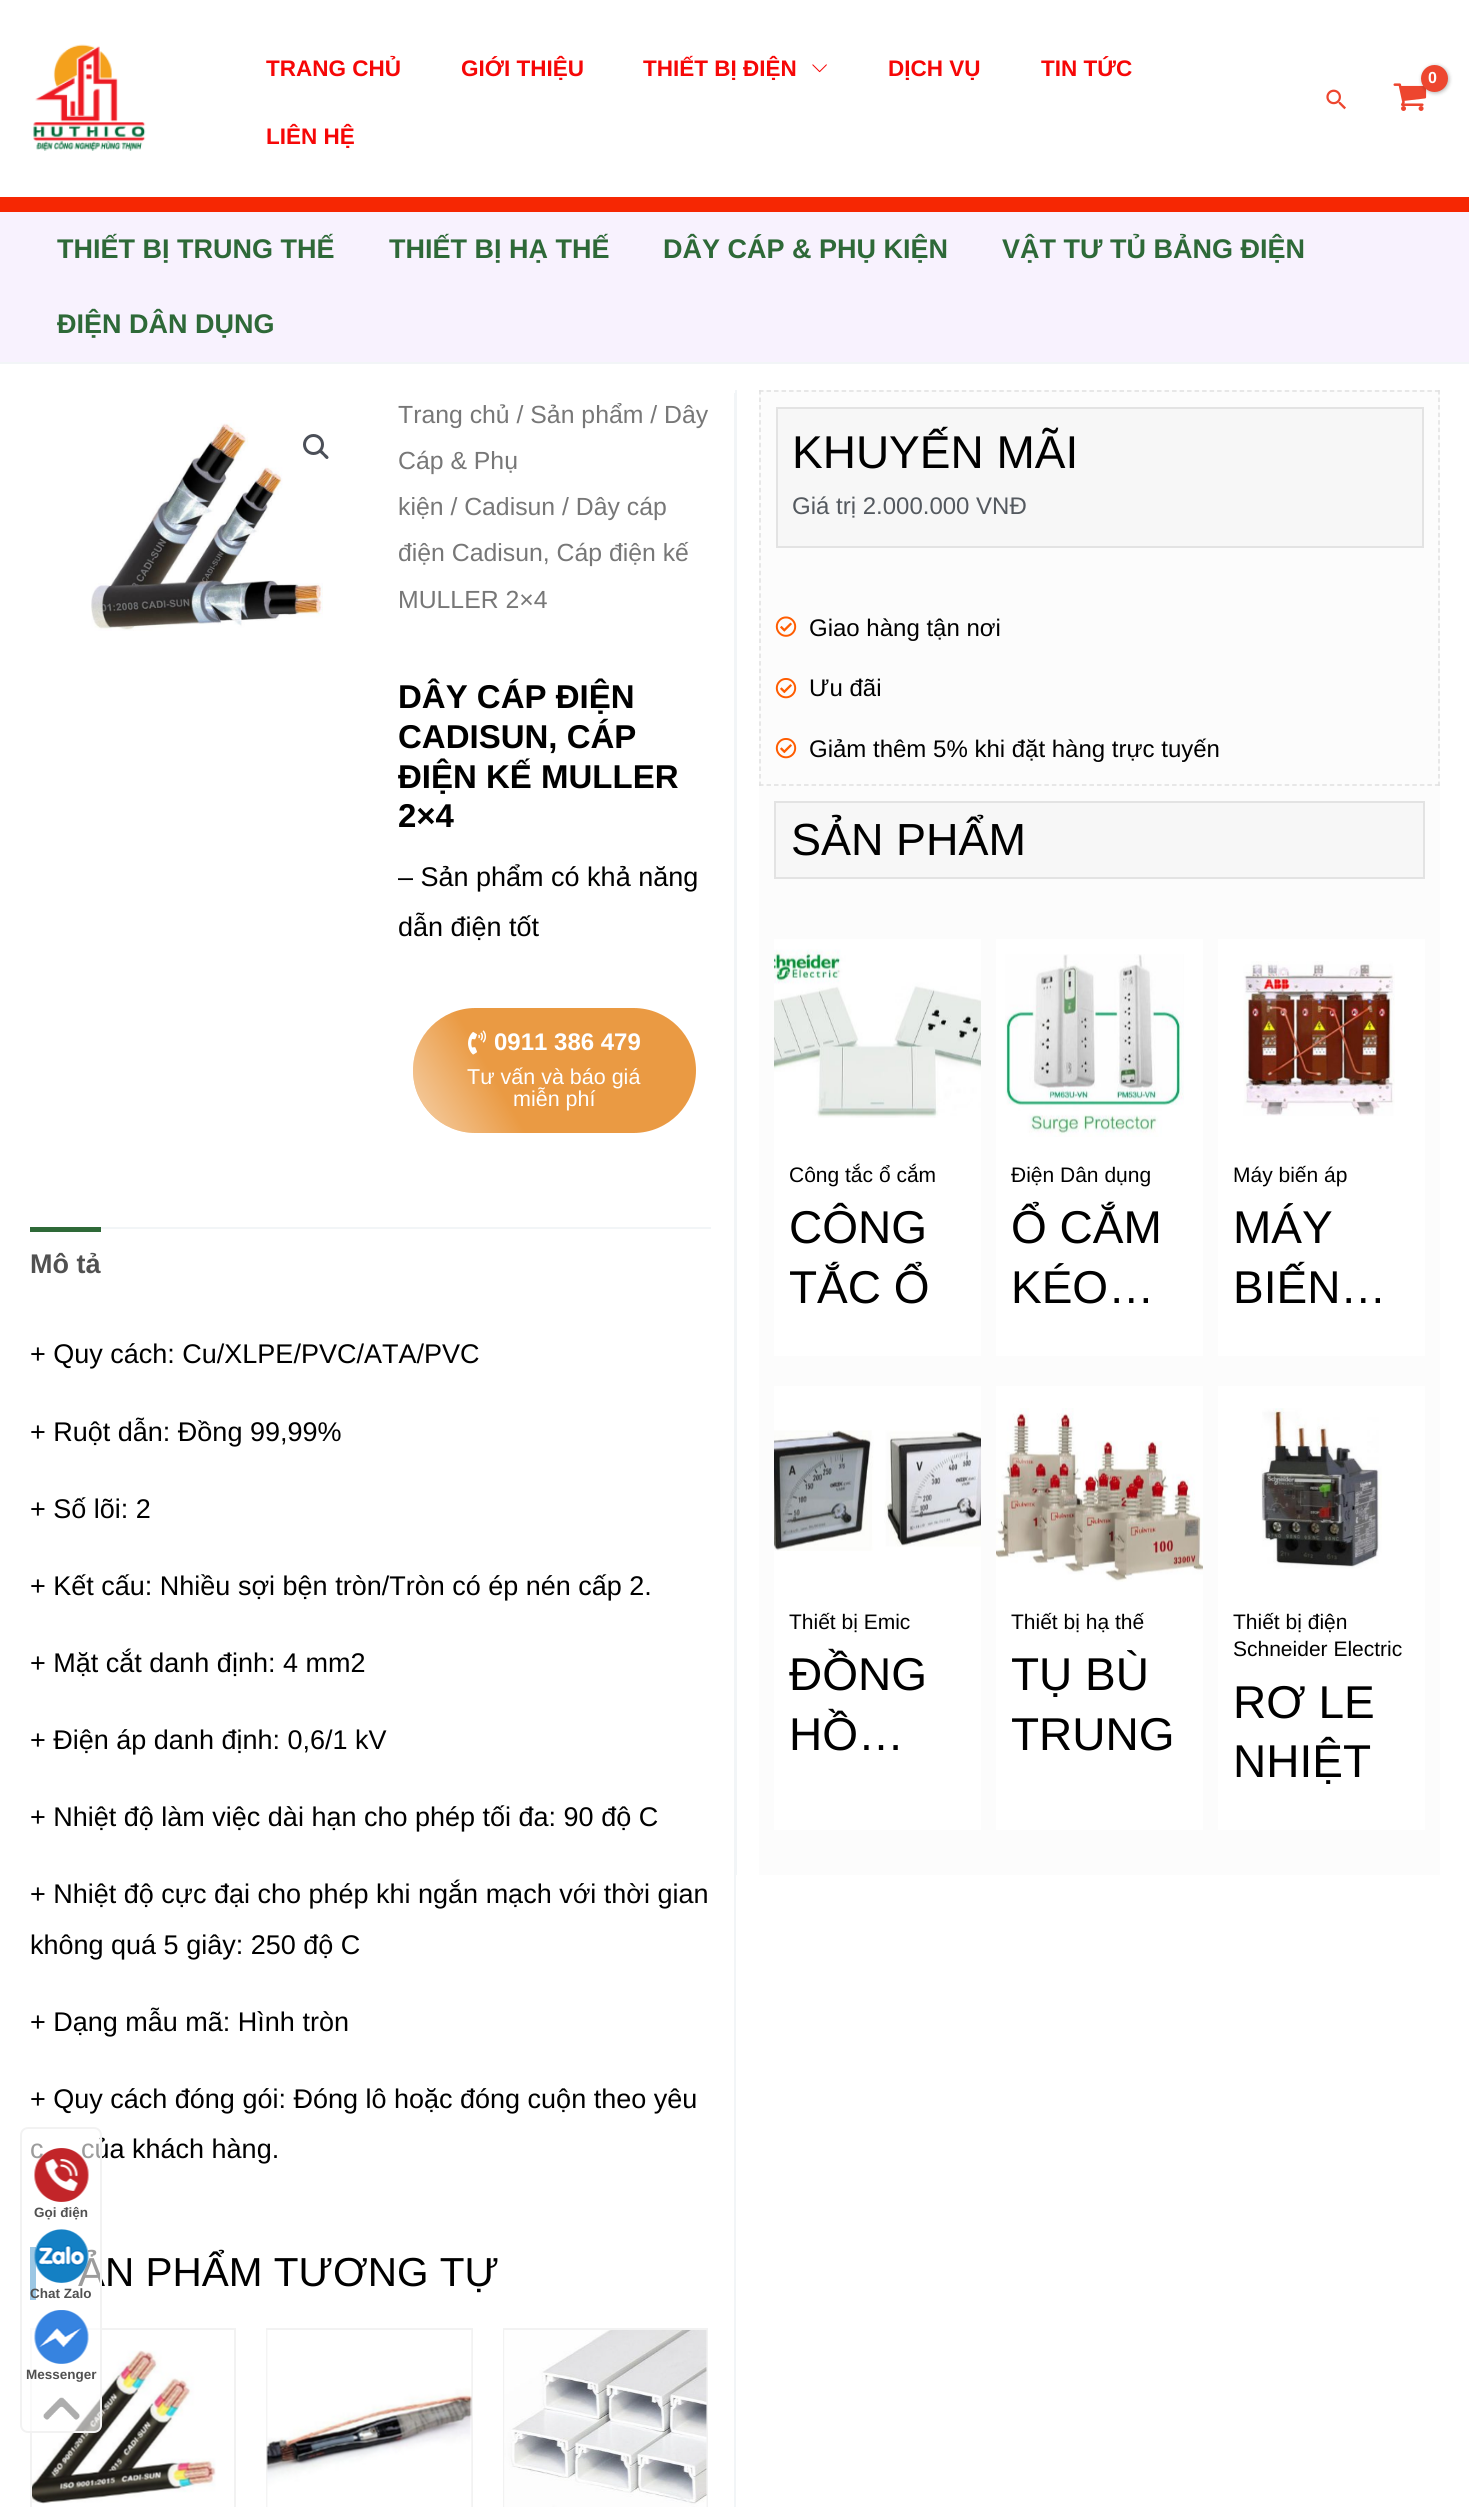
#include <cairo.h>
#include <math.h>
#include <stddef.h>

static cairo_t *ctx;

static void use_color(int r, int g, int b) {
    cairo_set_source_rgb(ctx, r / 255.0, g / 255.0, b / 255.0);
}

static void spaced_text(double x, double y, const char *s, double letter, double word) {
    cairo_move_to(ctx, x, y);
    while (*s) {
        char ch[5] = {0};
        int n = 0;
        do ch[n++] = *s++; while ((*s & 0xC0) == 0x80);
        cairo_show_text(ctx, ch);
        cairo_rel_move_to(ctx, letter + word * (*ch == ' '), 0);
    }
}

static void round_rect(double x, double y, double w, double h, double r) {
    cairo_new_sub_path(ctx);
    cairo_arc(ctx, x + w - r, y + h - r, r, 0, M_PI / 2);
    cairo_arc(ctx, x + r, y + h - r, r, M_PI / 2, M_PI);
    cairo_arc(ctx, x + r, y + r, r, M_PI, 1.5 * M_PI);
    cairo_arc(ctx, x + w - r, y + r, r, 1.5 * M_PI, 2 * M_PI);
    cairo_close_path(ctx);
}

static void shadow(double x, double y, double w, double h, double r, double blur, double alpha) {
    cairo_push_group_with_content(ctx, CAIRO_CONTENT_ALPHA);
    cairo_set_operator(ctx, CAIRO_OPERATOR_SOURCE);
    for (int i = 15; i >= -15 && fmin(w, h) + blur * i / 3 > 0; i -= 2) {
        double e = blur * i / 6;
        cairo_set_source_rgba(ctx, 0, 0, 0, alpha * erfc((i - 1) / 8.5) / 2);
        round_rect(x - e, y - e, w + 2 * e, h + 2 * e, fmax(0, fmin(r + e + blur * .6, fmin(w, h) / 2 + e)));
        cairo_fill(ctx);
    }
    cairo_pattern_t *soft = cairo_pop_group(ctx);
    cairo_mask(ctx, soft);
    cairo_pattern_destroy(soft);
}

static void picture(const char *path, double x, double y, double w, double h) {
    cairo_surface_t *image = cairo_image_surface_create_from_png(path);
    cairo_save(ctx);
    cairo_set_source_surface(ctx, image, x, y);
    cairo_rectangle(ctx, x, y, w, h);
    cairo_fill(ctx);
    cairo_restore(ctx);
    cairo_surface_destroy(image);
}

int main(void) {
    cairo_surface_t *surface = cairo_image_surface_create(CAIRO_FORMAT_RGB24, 1469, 2507);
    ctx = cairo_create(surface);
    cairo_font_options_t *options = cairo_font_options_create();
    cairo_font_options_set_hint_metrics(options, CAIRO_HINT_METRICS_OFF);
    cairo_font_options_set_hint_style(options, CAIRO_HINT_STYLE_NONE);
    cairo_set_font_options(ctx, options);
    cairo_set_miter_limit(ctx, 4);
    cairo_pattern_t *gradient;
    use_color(255, 255, 255);
    cairo_paint(ctx);
    use_color(246, 39, 3);
    cairo_rectangle(ctx, 0, 197, 1469, 15);
    cairo_fill(ctx);
    picture("img1.png", 33, 44, 113, 107);
    cairo_select_font_face(ctx, "Liberation Sans", CAIRO_FONT_SLANT_NORMAL, CAIRO_FONT_WEIGHT_BOLD);
    cairo_set_font_size(ctx, 22.5);
    use_color(246, 7, 7);
    cairo_move_to(ctx, 266, 76);
    cairo_show_text(ctx, "TRANG CHỦ");
    cairo_move_to(ctx, 461, 76);
    cairo_show_text(ctx, "GIỚI THIỆU");
    cairo_move_to(ctx, 643, 76);
    cairo_show_text(ctx, "THIẾT BỊ ĐIỆN");
    picture("img2.png", 812, 64, 15, 9);
    cairo_move_to(ctx, 888, 76);
    cairo_show_text(ctx, "DỊCH VỤ");
    cairo_move_to(ctx, 1041, 76);
    cairo_show_text(ctx, "TIN TỨC");
    cairo_move_to(ctx, 266, 144);
    cairo_show_text(ctx, "LIÊN HỆ");
    picture("img3.png", 1393, 83, 34, 28);
    use_color(0, 0, 0);
    shadow(1422, 66, 27, 27, 13.5, 2, 0.3);
    use_color(237, 70, 47);
    cairo_arc(ctx, 1434.5, 78.5, 13.5, 0, 2 * M_PI);
    cairo_fill(ctx);
    cairo_set_font_size(ctx, 16);
    use_color(255, 255, 255);
    spaced_text(1428, 83, "0", -1, 0);
    picture("img4.png", 1326, 89, 20, 21);
    use_color(248, 242, 254);
    cairo_rectangle(ctx, 0, 212, 1469, 150);
    cairo_fill(ctx);
    use_color(242, 245, 247);
    cairo_rectangle(ctx, 0, 362, 1469, 2);
    cairo_fill(ctx);
    cairo_set_font_size(ctx, 27);
    use_color(46, 105, 56);
    cairo_move_to(ctx, 57, 258);
    cairo_show_text(ctx, "THIẾT BỊ TRUNG THẾ");
    cairo_move_to(ctx, 389, 258);
    cairo_show_text(ctx, "THIẾT BỊ HẠ THẾ");
    cairo_move_to(ctx, 663, 258);
    cairo_show_text(ctx, "DÂY CÁP & PHỤ KIỆN");
    cairo_move_to(ctx, 1002, 258);
    cairo_show_text(ctx, "VẬT TƯ TỦ BẢNG ĐIỆN");
    cairo_move_to(ctx, 57, 333);
    cairo_show_text(ctx, "ĐIỆN DÂN DỤNG");
    use_color(242, 245, 247);
    cairo_rectangle(ctx, 734, 393, 2, 2114);
    cairo_fill(ctx);
    picture("img5.png", 91, 420, 232, 211);
    cairo_arc(ctx, 313.5, 444.5, 9, 0, 2 * M_PI);
    use_color(75, 79, 88);
    cairo_set_line_width(ctx, 3);
    cairo_stroke(ctx);
    cairo_new_path(ctx);
    cairo_move_to(ctx, 320, 450.5);
    cairo_curve_to(ctx, 321.5, 448.5, 324, 452.5, 325, 453.5);
    cairo_curve_to(ctx, 326, 454.5, 330, 457, 328, 458.5);
    cairo_curve_to(ctx, 326.5, 460.5, 324, 456.5, 323, 455.5);
    cairo_curve_to(ctx, 322, 454.5, 318, 452, 320, 450.5);
    cairo_close_path(ctx);
    cairo_fill(ctx);
    cairo_select_font_face(ctx, "Liberation Sans", CAIRO_FONT_SLANT_NORMAL, CAIRO_FONT_WEIGHT_NORMAL);
    cairo_set_font_size(ctx, 24.8);
    use_color(119, 119, 119);
    cairo_move_to(ctx, 398, 423);
    cairo_show_text(ctx, "Trang chủ / Sản phẩm / Dây");
    cairo_move_to(ctx, 398, 469);
    cairo_show_text(ctx, "Cáp & Phụ");
    cairo_move_to(ctx, 398, 515);
    cairo_show_text(ctx, "kiện / Cadisun / Dây cáp");
    cairo_move_to(ctx, 398, 561);
    cairo_show_text(ctx, "điện Cadisun, Cáp điện kế");
    cairo_move_to(ctx, 398, 608);
    cairo_show_text(ctx, "MULLER 2×4");
    cairo_select_font_face(ctx, "Liberation Sans", CAIRO_FONT_SLANT_NORMAL, CAIRO_FONT_WEIGHT_BOLD);
    cairo_set_font_size(ctx, 33);
    use_color(0, 0, 0);
    cairo_move_to(ctx, 398, 708);
    cairo_show_text(ctx, "DÂY CÁP ĐIỆN");
    cairo_move_to(ctx, 398, 748);
    cairo_show_text(ctx, "CADISUN, CÁP");
    cairo_move_to(ctx, 398, 788);
    cairo_show_text(ctx, "ĐIỆN KẾ MULLER");
    cairo_move_to(ctx, 398, 827);
    cairo_show_text(ctx, "2×4");
    cairo_select_font_face(ctx, "Liberation Sans", CAIRO_FONT_SLANT_NORMAL, CAIRO_FONT_WEIGHT_NORMAL);
    cairo_set_font_size(ctx, 27);
    cairo_move_to(ctx, 398, 886);
    cairo_show_text(ctx, "– Sản phẩm có khả năng");
    cairo_move_to(ctx, 398, 936);
    cairo_show_text(ctx, "dẫn điện tốt");
    use_color(234, 154, 67);
    round_rect(413, 1008, 283, 125, 62.5);
    cairo_fill(ctx);
    gradient = cairo_pattern_create_linear(446, 994, 231, 1118);
    cairo_pattern_add_color_stop_rgba(gradient, 0, 1, 1, 1, 0);
    cairo_pattern_add_color_stop_rgba(gradient, 0.5, 1, 1, 1, 0.7);
    cairo_pattern_add_color_stop_rgba(gradient, 1, 1, 1, 1, 0);
    cairo_set_source(ctx, gradient);
    cairo_pattern_destroy(gradient);
    cairo_new_path(ctx);
    cairo_move_to(ctx, 456, 1011);
    cairo_line_to(ctx, 527, 1133);
    cairo_line_to(ctx, 476, 1133);
    cairo_curve_to(ctx, 441, 1133, 413, 1105, 413, 1070);
    cairo_curve_to(ctx, 413, 1043, 431, 1019, 456, 1011);
    cairo_close_path(ctx);
    cairo_fill(ctx);
    picture("img6.png", 468, 1030, 19, 25);
    cairo_select_font_face(ctx, "Liberation Sans", CAIRO_FONT_SLANT_NORMAL, CAIRO_FONT_WEIGHT_BOLD);
    cairo_set_font_size(ctx, 24);
    use_color(255, 255, 255);
    cairo_move_to(ctx, 494, 1050);
    cairo_show_text(ctx, "0911 386 479");
    cairo_select_font_face(ctx, "Liberation Sans", CAIRO_FONT_SLANT_NORMAL, CAIRO_FONT_WEIGHT_NORMAL);
    cairo_set_font_size(ctx, 21.5);
    cairo_move_to(ctx, 467, 1084);
    cairo_show_text(ctx, "Tư vấn và báo giá");
    cairo_move_to(ctx, 513, 1106);
    cairo_show_text(ctx, "miễn phí");
    use_color(242, 245, 247);
    cairo_rectangle(ctx, 101, 1227, 610, 2);
    cairo_fill(ctx);
    use_color(46, 105, 56);
    cairo_rectangle(ctx, 30, 1227, 71, 5);
    cairo_fill(ctx);
    cairo_select_font_face(ctx, "Liberation Sans", CAIRO_FONT_SLANT_NORMAL, CAIRO_FONT_WEIGHT_BOLD);
    cairo_set_font_size(ctx, 27);
    use_color(81, 81, 81);
    cairo_move_to(ctx, 30, 1273);
    cairo_show_text(ctx, "Mô tả");
    cairo_select_font_face(ctx, "Liberation Sans", CAIRO_FONT_SLANT_NORMAL, CAIRO_FONT_WEIGHT_NORMAL);
    use_color(0, 0, 0);
    cairo_move_to(ctx, 30, 1363);
    cairo_show_text(ctx, "+ Quy cách: Cu/XLPE/PVC/ATA/PVC");
    cairo_move_to(ctx, 30, 1441);
    cairo_show_text(ctx, "+ Ruột dẫn: Đồng 99,99%");
    cairo_move_to(ctx, 30, 1518);
    cairo_show_text(ctx, "+ Số lõi: 2");
    cairo_move_to(ctx, 30, 1595);
    cairo_show_text(ctx, "+ Kết cấu: Nhiều sợi bện tròn/Tròn có ép nén cấp 2.");
    cairo_move_to(ctx, 30, 1672);
    cairo_show_text(ctx, "+ Mặt cắt danh định: 4 mm2");
    cairo_move_to(ctx, 30, 1749);
    cairo_show_text(ctx, "+ Điện áp danh định: 0,6/1 kV");
    cairo_move_to(ctx, 30, 1826);
    cairo_show_text(ctx, "+ Nhiệt độ làm việc dài hạn cho phép tối đa: 90 độ C");
    cairo_move_to(ctx, 30, 1903);
    cairo_show_text(ctx, "+ Nhiệt độ cực đại cho phép khi ngắn mạch với thời gian");
    cairo_move_to(ctx, 30, 1954);
    cairo_show_text(ctx, "không quá 5 giây: 250 độ C");
    cairo_move_to(ctx, 30, 2031);
    cairo_show_text(ctx, "+ Dạng mẫu mã: Hình tròn");
    cairo_move_to(ctx, 30, 2108);
    cairo_show_text(ctx, "+ Quy cách đóng gói: Đóng lô hoặc đóng cuộn theo yêu");
    cairo_move_to(ctx, 30, 2158);
    cairo_show_text(ctx, "c");
    cairo_move_to(ctx, 81, 2158);
    cairo_show_text(ctx, "của khách hàng.");
    use_color(1, 112, 185);
    cairo_rectangle(ctx, 30, 2247, 6, 53);
    cairo_fill(ctx);
    cairo_set_font_size(ctx, 40.5);
    use_color(0, 0, 0);
    cairo_move_to(ctx, 78, 2286);
    cairo_show_text(ctx, "ẢN PHẨM TƯƠNG TỰ");
    cairo_rectangle(ctx, 31, 2329, 204, 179);
    use_color(242, 242, 242);
    cairo_set_line_width(ctx, 2);
    cairo_stroke(ctx);
    picture("img7.png", 32, 2350, 184, 154);
    cairo_rectangle(ctx, 267, 2329, 205, 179);
    cairo_stroke(ctx);
    picture("img8.png", 266, 2330, 206, 177);
    cairo_rectangle(ctx, 504, 2329, 203, 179);
    cairo_stroke(ctx);
    picture("img9.png", 504, 2330, 203, 177);
    use_color(242, 245, 247);
    cairo_rectangle(ctx, 735, 390, 2, 1485);
    cairo_fill(ctx);
    use_color(252, 252, 252);
    cairo_rectangle(ctx, 759, 390, 681, 1485);
    cairo_fill(ctx);
    cairo_new_path(ctx);
    cairo_move_to(ctx, 759, 391);
    cairo_line_to(ctx, 1440, 391);
    use_color(224, 224, 224);
    cairo_set_line_width(ctx, 1.5);
    cairo_set_dash(ctx, (double[]){4.5, 3.01}, 2, 0);
    cairo_stroke(ctx);
    cairo_new_path(ctx);
    cairo_move_to(ctx, 1439, 390);
    cairo_line_to(ctx, 1439, 786);
    cairo_set_dash(ctx, (double[]){4.5, 3.03}, 2, 0);
    cairo_stroke(ctx);
    cairo_new_path(ctx);
    cairo_move_to(ctx, 759, 785);
    cairo_line_to(ctx, 1440, 785);
    cairo_set_dash(ctx, (double[]){4.5, 3.01}, 2, 0);
    cairo_stroke(ctx);
    cairo_new_path(ctx);
    cairo_move_to(ctx, 760, 390);
    cairo_line_to(ctx, 760, 786);
    cairo_set_dash(ctx, (double[]){4.5, 3.03}, 2, 0);
    cairo_stroke(ctx);
    use_color(247, 247, 247);
    cairo_rectangle(ctx, 777, 408, 646, 139);
    cairo_fill_preserve(ctx);
    use_color(227, 227, 227);
    cairo_set_line_width(ctx, 2);
    cairo_set_dash(ctx, NULL, 0, 0);
    cairo_stroke(ctx);
    cairo_set_font_size(ctx, 46);
    use_color(0, 0, 0);
    cairo_move_to(ctx, 792, 468);
    cairo_show_text(ctx, "KHUYẾN MÃI");
    cairo_set_font_size(ctx, 24);
    use_color(84, 89, 95);
    cairo_move_to(ctx, 792, 514);
    cairo_show_text(ctx, "Giá trị 2.000.000 VNĐ");
    picture("img10.png", 775, 616, 22, 21);
    use_color(0, 0, 0);
    cairo_move_to(ctx, 809, 636);
    cairo_show_text(ctx, "Giao hàng tận nơi");
    picture("img11.png", 775, 678, 22, 21);
    cairo_move_to(ctx, 809, 696);
    cairo_show_text(ctx, "Ưu đãi");
    picture("img11.png", 775, 738, 22, 21);
    cairo_move_to(ctx, 809, 757);
    cairo_show_text(ctx, "Giảm thêm 5% khi đặt hàng trực tuyến");
    use_color(247, 247, 247);
    cairo_rectangle(ctx, 775, 802, 649, 76);
    cairo_fill_preserve(ctx);
    use_color(227, 227, 227);
    cairo_stroke(ctx);
    cairo_set_font_size(ctx, 45);
    use_color(0, 0, 0);
    cairo_move_to(ctx, 791, 855);
    cairo_show_text(ctx, "SẢN PHẨM");
    use_color(255, 255, 255);
    cairo_rectangle(ctx, 774, 939, 207, 417);
    cairo_fill(ctx);
    picture("img12.png", 774, 949, 207, 169);
    cairo_set_font_size(ctx, 21);
    use_color(0, 0, 0);
    cairo_move_to(ctx, 789, 1182);
    cairo_show_text(ctx, "Công tắc ổ cắm");
    cairo_set_font_size(ctx, 46);
    cairo_move_to(ctx, 789, 1243);
    cairo_show_text(ctx, "CÔNG");
    cairo_move_to(ctx, 789, 1303);
    cairo_show_text(ctx, "TẮC Ổ");
    use_color(255, 255, 255);
    cairo_rectangle(ctx, 996, 939, 207, 417);
    cairo_fill(ctx);
    picture("img13.png", 1005, 954, 179, 183);
    cairo_set_font_size(ctx, 21);
    use_color(0, 0, 0);
    cairo_move_to(ctx, 1011, 1182);
    cairo_show_text(ctx, "Điện Dân dụng");
    cairo_set_font_size(ctx, 46);
    cairo_move_to(ctx, 1011, 1243);
    cairo_show_text(ctx, "Ổ CẮM");
    cairo_move_to(ctx, 1011, 1303);
    cairo_show_text(ctx, "KÉO…");
    use_color(255, 255, 255);
    cairo_rectangle(ctx, 1218, 939, 207, 417);
    cairo_fill(ctx);
    picture("img14.png", 1243, 961, 152, 155);
    cairo_set_font_size(ctx, 21);
    use_color(0, 0, 0);
    cairo_move_to(ctx, 1233, 1182);
    cairo_show_text(ctx, "Máy biến áp");
    cairo_set_font_size(ctx, 46);
    cairo_move_to(ctx, 1233, 1243);
    cairo_show_text(ctx, "MÁY");
    cairo_move_to(ctx, 1233, 1303);
    cairo_show_text(ctx, "BIẾN…");
    use_color(255, 255, 255);
    cairo_rectangle(ctx, 774, 1386, 207, 444);
    cairo_fill(ctx);
    picture("img15.png", 774, 1430, 207, 121);
    cairo_set_font_size(ctx, 21);
    use_color(0, 0, 0);
    cairo_move_to(ctx, 789, 1629);
    cairo_show_text(ctx, "Thiết bị Emic");
    cairo_set_font_size(ctx, 46);
    cairo_move_to(ctx, 789, 1690);
    cairo_show_text(ctx, "ĐỒNG");
    cairo_move_to(ctx, 789, 1750);
    cairo_show_text(ctx, "HỒ…");
    use_color(255, 255, 255);
    cairo_rectangle(ctx, 996, 1386, 207, 444);
    cairo_fill(ctx);
    picture("img16.png", 996, 1408, 207, 174);
    cairo_set_font_size(ctx, 21);
    use_color(0, 0, 0);
    cairo_move_to(ctx, 1011, 1629);
    cairo_show_text(ctx, "Thiết bị hạ thế");
    cairo_set_font_size(ctx, 46);
    cairo_move_to(ctx, 1011, 1690);
    cairo_show_text(ctx, "TỤ BÙ");
    cairo_move_to(ctx, 1011, 1750);
    cairo_show_text(ctx, "TRUNG");
    use_color(255, 255, 255);
    cairo_rectangle(ctx, 1218, 1386, 207, 444);
    cairo_fill(ctx);
    picture("img17.png", 1261, 1408, 121, 161);
    cairo_set_font_size(ctx, 21);
    use_color(0, 0, 0);
    cairo_move_to(ctx, 1233, 1629);
    cairo_show_text(ctx, "Thiết bị điện");
    cairo_move_to(ctx, 1233, 1656);
    cairo_show_text(ctx, "Schneider Electric");
    cairo_set_font_size(ctx, 46);
    cairo_move_to(ctx, 1233, 1718);
    cairo_show_text(ctx, "RƠ LE");
    cairo_move_to(ctx, 1233, 1777);
    cairo_show_text(ctx, "NHIỆT");
    cairo_set_source_rgba(ctx, 1, 1, 1, 0.61);
    round_rect(21, 2128, 80, 304, 7);
    cairo_fill_preserve(ctx);
    use_color(242, 242, 242);
    cairo_stroke(ctx);
    picture("img18.png", 34, 2148, 55, 54);
    cairo_select_font_face(ctx, "Liberation Sans", CAIRO_FONT_SLANT_NORMAL, CAIRO_FONT_WEIGHT_BOLD);
    cairo_set_font_size(ctx, 13.5);
    use_color(81, 81, 81);
    cairo_move_to(ctx, 34, 2217);
    cairo_show_text(ctx, "Gọi điện");
    picture("img19.png", 34, 2229, 55, 54);
    cairo_move_to(ctx, 30, 2298);
    cairo_show_text(ctx, "Chat Zalo");
    picture("img20.png", 34, 2310, 55, 54);
    cairo_move_to(ctx, 26, 2379);
    cairo_show_text(ctx, "Messenger");
    picture("img21.png", 43, 2397, 37, 23);
    cairo_surface_write_to_png(surface, "result.png");
    cairo_font_options_destroy(options);
    cairo_destroy(ctx);
    cairo_surface_destroy(surface);
    return 0;
}
